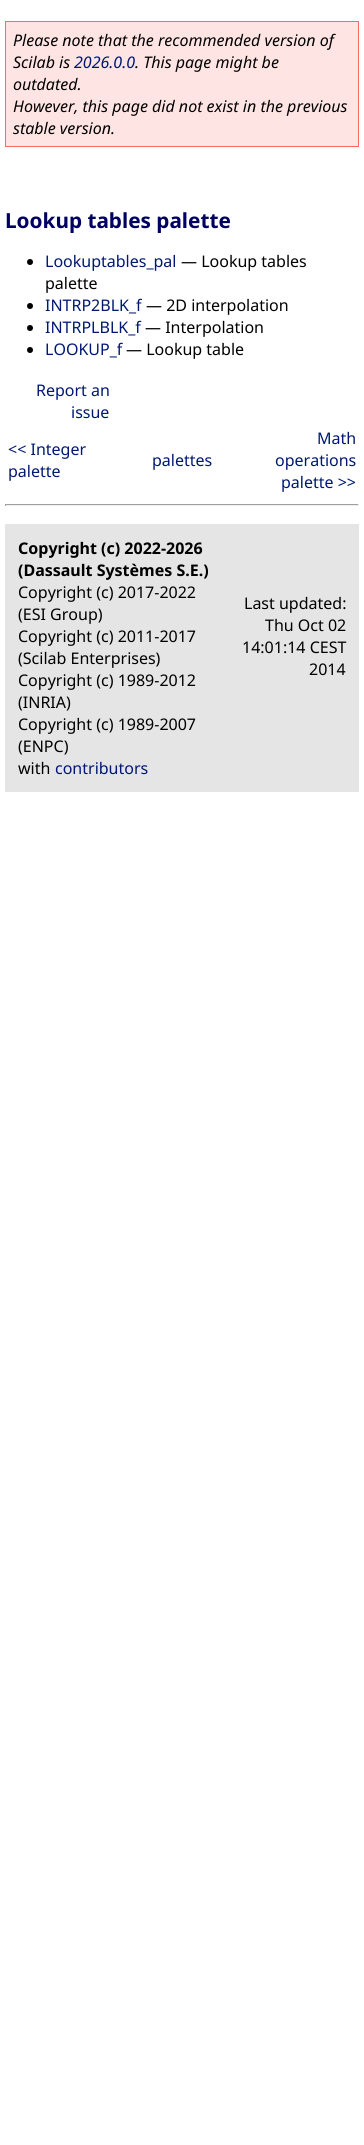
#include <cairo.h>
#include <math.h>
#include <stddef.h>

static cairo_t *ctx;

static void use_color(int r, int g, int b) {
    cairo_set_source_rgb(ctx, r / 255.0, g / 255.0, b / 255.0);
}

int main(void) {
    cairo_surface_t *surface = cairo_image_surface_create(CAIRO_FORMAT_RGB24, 364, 2145);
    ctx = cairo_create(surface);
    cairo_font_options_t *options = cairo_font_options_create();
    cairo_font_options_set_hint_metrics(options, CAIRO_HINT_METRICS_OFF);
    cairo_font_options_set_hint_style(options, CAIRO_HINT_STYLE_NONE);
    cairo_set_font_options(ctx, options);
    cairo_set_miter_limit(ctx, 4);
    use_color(255, 255, 255);
    cairo_paint(ctx);
    use_color(255, 228, 228);
    cairo_rectangle(ctx, 5.5, 21.5, 353, 125);
    cairo_fill_preserve(ctx);
    use_color(255, 102, 102);
    cairo_set_line_width(ctx, 1);
    cairo_stroke(ctx);
    cairo_select_font_face(ctx, "Noto Sans", CAIRO_FONT_SLANT_ITALIC, CAIRO_FONT_WEIGHT_NORMAL);
    cairo_set_font_size(ctx, 16);
    use_color(0, 0, 0);
    cairo_move_to(ctx, 13, 46);
    cairo_show_text(ctx, "Please note that the recommended version of");
    cairo_move_to(ctx, 13, 68);
    cairo_show_text(ctx, "Scilab is");
    use_color(0, 24, 113);
    cairo_move_to(ctx, 74, 68);
    cairo_show_text(ctx, "2026.0.0");
    use_color(0, 0, 0);
    cairo_move_to(ctx, 135, 68);
    cairo_show_text(ctx, ". This page might be");
    cairo_move_to(ctx, 13, 90);
    cairo_show_text(ctx, "outdated.");
    cairo_move_to(ctx, 13, 112);
    cairo_show_text(ctx, "However, this page did not exist in the previous");
    cairo_move_to(ctx, 13, 134);
    cairo_show_text(ctx, "stable version.");
    cairo_select_font_face(ctx, "Noto Sans", CAIRO_FONT_SLANT_NORMAL, CAIRO_FONT_WEIGHT_BOLD);
    cairo_set_font_size(ctx, 20.75);
    use_color(0, 0, 99);
    cairo_move_to(ctx, 5, 228);
    cairo_show_text(ctx, "Lookup tables palette");
    use_color(0, 0, 0);
    cairo_new_path(ctx);
    cairo_arc(ctx, 30, 262, 3, 0, 2 * M_PI);
    cairo_fill(ctx);
    cairo_select_font_face(ctx, "Noto Sans", CAIRO_FONT_SLANT_NORMAL, CAIRO_FONT_WEIGHT_NORMAL);
    cairo_set_font_size(ctx, 16);
    use_color(0, 24, 113);
    cairo_move_to(ctx, 45, 267);
    cairo_show_text(ctx, "Lookuptables_pal");
    use_color(0, 0, 0);
    cairo_move_to(ctx, 181, 267);
    cairo_show_text(ctx, "— Lookup tables");
    cairo_move_to(ctx, 45, 289);
    cairo_show_text(ctx, "palette");
    cairo_new_path(ctx);
    cairo_arc(ctx, 30, 306, 3, 0, 2 * M_PI);
    cairo_fill(ctx);
    use_color(0, 24, 113);
    cairo_move_to(ctx, 45, 311);
    cairo_show_text(ctx, "INTRP2BLK_f");
    use_color(0, 0, 0);
    cairo_move_to(ctx, 146, 311);
    cairo_show_text(ctx, "— 2D interpolation");
    cairo_new_path(ctx);
    cairo_arc(ctx, 30, 328, 3, 0, 2 * M_PI);
    cairo_fill(ctx);
    use_color(0, 24, 113);
    cairo_move_to(ctx, 45, 333);
    cairo_show_text(ctx, "INTRPLBLK_f");
    use_color(0, 0, 0);
    cairo_move_to(ctx, 145, 333);
    cairo_show_text(ctx, "— Interpolation");
    cairo_new_path(ctx);
    cairo_arc(ctx, 30, 350, 3, 0, 2 * M_PI);
    cairo_fill(ctx);
    use_color(0, 24, 113);
    cairo_move_to(ctx, 45, 355);
    cairo_show_text(ctx, "LOOKUP_f");
    use_color(0, 0, 0);
    cairo_move_to(ctx, 126, 355);
    cairo_show_text(ctx, "— Lookup table");
    use_color(0, 24, 113);
    cairo_move_to(ctx, 36, 396);
    cairo_show_text(ctx, "Report an");
    cairo_move_to(ctx, 71, 418);
    cairo_show_text(ctx, "issue");
    cairo_move_to(ctx, 8, 455);
    cairo_show_text(ctx, "<< Integer");
    cairo_move_to(ctx, 8, 477);
    cairo_show_text(ctx, "palette");
    cairo_move_to(ctx, 152, 466);
    cairo_show_text(ctx, "palettes");
    cairo_move_to(ctx, 317, 444);
    cairo_show_text(ctx, "Math");
    cairo_move_to(ctx, 275, 466);
    cairo_show_text(ctx, "operations");
    cairo_move_to(ctx, 281, 488);
    cairo_show_text(ctx, "palette >>");
    use_color(159, 159, 159);
    cairo_rectangle(ctx, 5, 504, 354, 1);
    cairo_fill(ctx);
    use_color(238, 238, 238);
    cairo_rectangle(ctx, 358, 504, 1, 2);
    cairo_fill(ctx);
    cairo_rectangle(ctx, 5, 505, 354, 1);
    cairo_fill(ctx);
    use_color(159, 159, 159);
    cairo_rectangle(ctx, 5, 504, 1, 2);
    cairo_fill(ctx);
    use_color(229, 229, 229);
    cairo_rectangle(ctx, 5, 524, 354, 268);
    cairo_fill(ctx);
    cairo_select_font_face(ctx, "Noto Sans", CAIRO_FONT_SLANT_NORMAL, CAIRO_FONT_WEIGHT_BOLD);
    use_color(0, 0, 0);
    cairo_move_to(ctx, 18, 554);
    cairo_show_text(ctx, "Copyright (c) 2022-2026");
    cairo_move_to(ctx, 18, 576);
    cairo_show_text(ctx, "(Dassault Systèmes S.E.)");
    cairo_select_font_face(ctx, "Noto Sans", CAIRO_FONT_SLANT_NORMAL, CAIRO_FONT_WEIGHT_NORMAL);
    cairo_move_to(ctx, 18, 598);
    cairo_show_text(ctx, "Copyright (c) 2017-2022");
    cairo_move_to(ctx, 18, 620);
    cairo_show_text(ctx, "(ESI Group)");
    cairo_move_to(ctx, 18, 642);
    cairo_show_text(ctx, "Copyright (c) 2011-2017");
    cairo_move_to(ctx, 18, 664);
    cairo_show_text(ctx, "(Scilab Enterprises)");
    cairo_move_to(ctx, 18, 686);
    cairo_show_text(ctx, "Copyright (c) 1989-2012");
    cairo_move_to(ctx, 18, 708);
    cairo_show_text(ctx, "(INRIA)");
    cairo_move_to(ctx, 18, 730);
    cairo_show_text(ctx, "Copyright (c) 1989-2007");
    cairo_move_to(ctx, 18, 752);
    cairo_show_text(ctx, "(ENPC)");
    cairo_move_to(ctx, 18, 774);
    cairo_show_text(ctx, "with");
    use_color(0, 24, 113);
    cairo_move_to(ctx, 55, 774);
    cairo_show_text(ctx, "contributors");
    use_color(0, 0, 0);
    cairo_move_to(ctx, 244, 609);
    cairo_show_text(ctx, "Last updated:");
    cairo_move_to(ctx, 265, 631);
    cairo_show_text(ctx, "Thu Oct 02");
    cairo_move_to(ctx, 242, 653);
    cairo_show_text(ctx, "14:01:14 CEST");
    cairo_move_to(ctx, 309, 675);
    cairo_show_text(ctx, "2014");
    cairo_surface_write_to_png(surface, "result.png");
    cairo_font_options_destroy(options);
    cairo_destroy(ctx);
    cairo_surface_destroy(surface);
    return 0;
}
